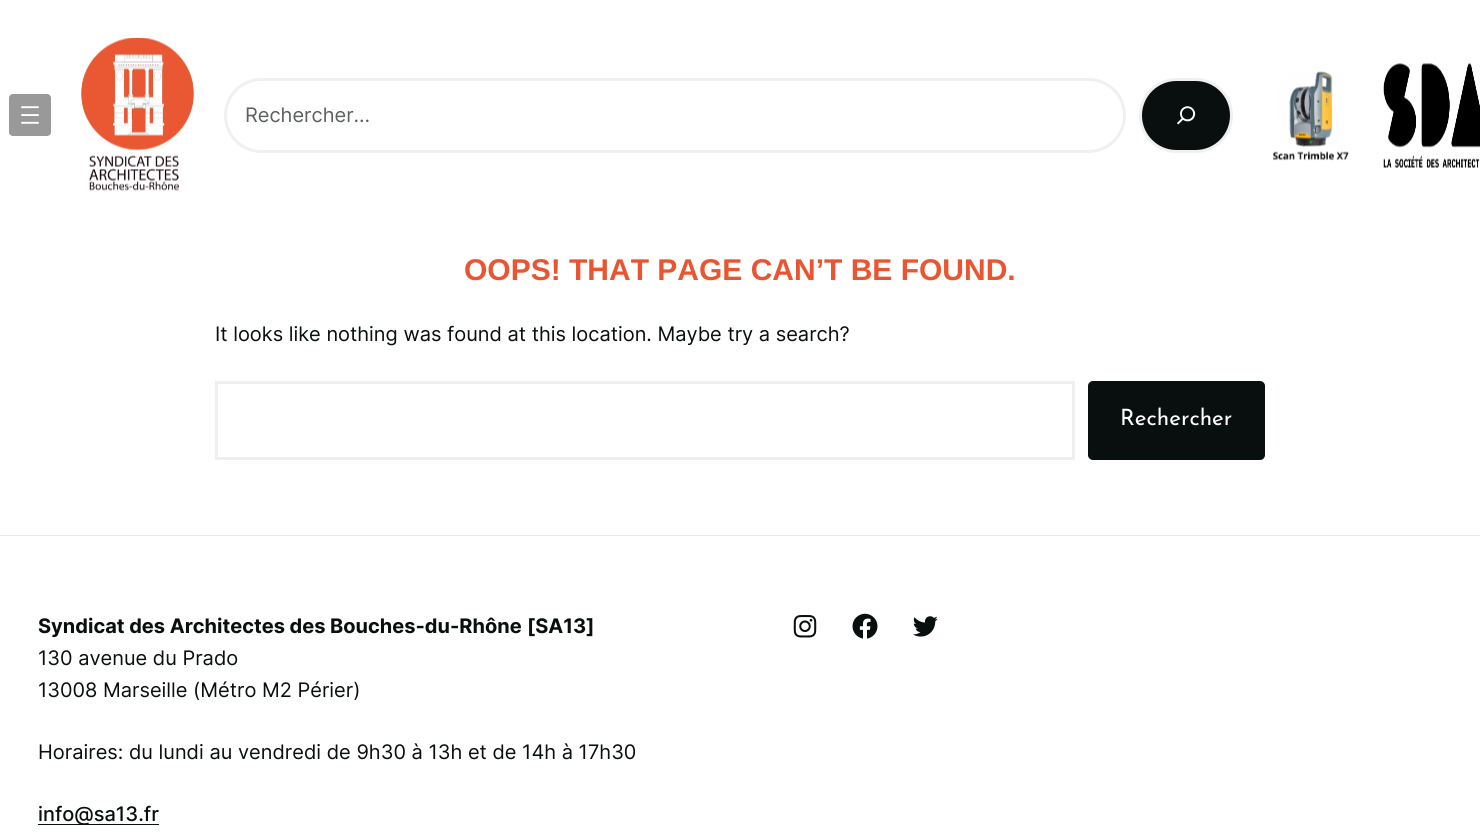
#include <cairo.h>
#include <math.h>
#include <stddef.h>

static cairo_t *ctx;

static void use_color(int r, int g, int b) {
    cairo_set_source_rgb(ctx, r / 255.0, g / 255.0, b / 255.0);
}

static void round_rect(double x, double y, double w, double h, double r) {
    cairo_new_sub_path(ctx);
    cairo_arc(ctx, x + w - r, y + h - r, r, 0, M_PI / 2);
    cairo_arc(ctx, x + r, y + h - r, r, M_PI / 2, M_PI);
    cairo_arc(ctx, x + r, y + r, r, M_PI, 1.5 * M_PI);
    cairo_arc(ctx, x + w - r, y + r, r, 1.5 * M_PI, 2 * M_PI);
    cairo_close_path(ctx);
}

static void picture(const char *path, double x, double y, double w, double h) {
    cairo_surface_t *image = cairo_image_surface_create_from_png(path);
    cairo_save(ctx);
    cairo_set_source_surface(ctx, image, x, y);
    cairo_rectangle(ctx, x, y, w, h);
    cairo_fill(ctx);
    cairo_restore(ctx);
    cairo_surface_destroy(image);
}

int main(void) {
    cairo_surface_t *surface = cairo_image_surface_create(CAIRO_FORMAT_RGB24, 1480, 839);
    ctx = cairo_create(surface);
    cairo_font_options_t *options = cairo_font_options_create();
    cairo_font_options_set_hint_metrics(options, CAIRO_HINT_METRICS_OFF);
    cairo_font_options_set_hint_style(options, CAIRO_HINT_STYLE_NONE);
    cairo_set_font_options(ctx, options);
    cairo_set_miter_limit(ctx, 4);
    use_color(255, 255, 255);
    cairo_paint(ctx);
    use_color(153, 153, 153);
    round_rect(9, 94, 42, 42, 4);
    cairo_fill(ctx);
    picture("img1.png", 21, 106, 18, 18);
    picture("img2.png", 81, 38, 113, 153);
    round_rect(225.5, 79.5, 899, 72, 36);
    use_color(240, 240, 240);
    cairo_set_line_width(ctx, 3);
    cairo_stroke(ctx);
    cairo_select_font_face(ctx, "Inter", CAIRO_FONT_SLANT_NORMAL, CAIRO_FONT_WEIGHT_NORMAL);
    cairo_set_font_size(ctx, 20);
    use_color(93, 96, 96);
    cairo_move_to(ctx, 245, 122);
    cairo_show_text(ctx, "Rechercher...");
    use_color(9, 14, 14);
    round_rect(1140.5, 79.5, 91, 72, 36);
    cairo_fill_preserve(ctx);
    use_color(240, 240, 240);
    cairo_stroke(ctx);
    picture("img3.png", 1177, 106, 19, 19);
    picture("img4.png", 1273, 71, 76, 90);
    picture("img5.png", 1383, 63, 97, 105);
    cairo_select_font_face(ctx, "Liberation Sans", CAIRO_FONT_SLANT_NORMAL, CAIRO_FONT_WEIGHT_BOLD);
    cairo_set_font_size(ctx, 30);
    use_color(234, 85, 49);
    cairo_move_to(ctx, 464, 280);
    cairo_show_text(ctx, "OOPS! THAT PAGE CAN’T BE FOUND.");
    cairo_select_font_face(ctx, "Inter", CAIRO_FONT_SLANT_NORMAL, CAIRO_FONT_WEIGHT_NORMAL);
    cairo_set_font_size(ctx, 20);
    use_color(9, 14, 14);
    cairo_move_to(ctx, 215, 341);
    cairo_show_text(ctx, "It looks like nothing was found at this location. Maybe try a search?");
    cairo_rectangle(ctx, 216.5, 382.5, 857, 76);
    use_color(239, 239, 239);
    cairo_stroke(ctx);
    use_color(9, 14, 14);
    round_rect(1088, 381, 177, 79, 5);
    cairo_fill(ctx);
    cairo_select_font_face(ctx, "Josefin Sans", CAIRO_FONT_SLANT_NORMAL, CAIRO_FONT_WEIGHT_NORMAL);
    cairo_set_font_size(ctx, 22.5);
    use_color(255, 255, 255);
    cairo_move_to(ctx, 1120, 425);
    cairo_show_text(ctx, "Rechercher");
    use_color(234, 234, 236);
    cairo_rectangle(ctx, 0, 535, 1480, 1);
    cairo_fill(ctx);
    cairo_select_font_face(ctx, "Inter", CAIRO_FONT_SLANT_NORMAL, CAIRO_FONT_WEIGHT_BOLD);
    cairo_set_font_size(ctx, 20);
    use_color(9, 14, 14);
    cairo_move_to(ctx, 38, 633);
    cairo_show_text(ctx, "Syndicat des Architectes des Bouches-du-Rhône");
    cairo_move_to(ctx, 527, 633);
    cairo_show_text(ctx, "[SA13]");
    cairo_select_font_face(ctx, "Inter", CAIRO_FONT_SLANT_NORMAL, CAIRO_FONT_WEIGHT_NORMAL);
    cairo_move_to(ctx, 38, 665);
    cairo_show_text(ctx, "130 avenue du Prado");
    cairo_move_to(ctx, 38, 697);
    cairo_show_text(ctx, "13008 Marseille (Métro M2 Périer)");
    cairo_move_to(ctx, 38, 759);
    cairo_show_text(ctx, "Horaires: du lundi au vendredi de 9h30 à 13h et de 14h à 17h30");
    cairo_rectangle(ctx, 38, 824, 121, 1);
    cairo_fill(ctx);
    cairo_select_font_face(ctx, "Inter Medium", CAIRO_FONT_SLANT_NORMAL, CAIRO_FONT_WEIGHT_NORMAL);
    cairo_move_to(ctx, 38, 821);
    cairo_show_text(ctx, "info@sa13.fr");
    picture("img6.png", 793, 615, 24, 23);
    picture("img7.png", 852, 613, 26, 26);
    picture("img8.png", 913, 616, 25, 21);
    cairo_surface_write_to_png(surface, "result.png");
    cairo_font_options_destroy(options);
    cairo_destroy(ctx);
    cairo_surface_destroy(surface);
    return 0;
}
